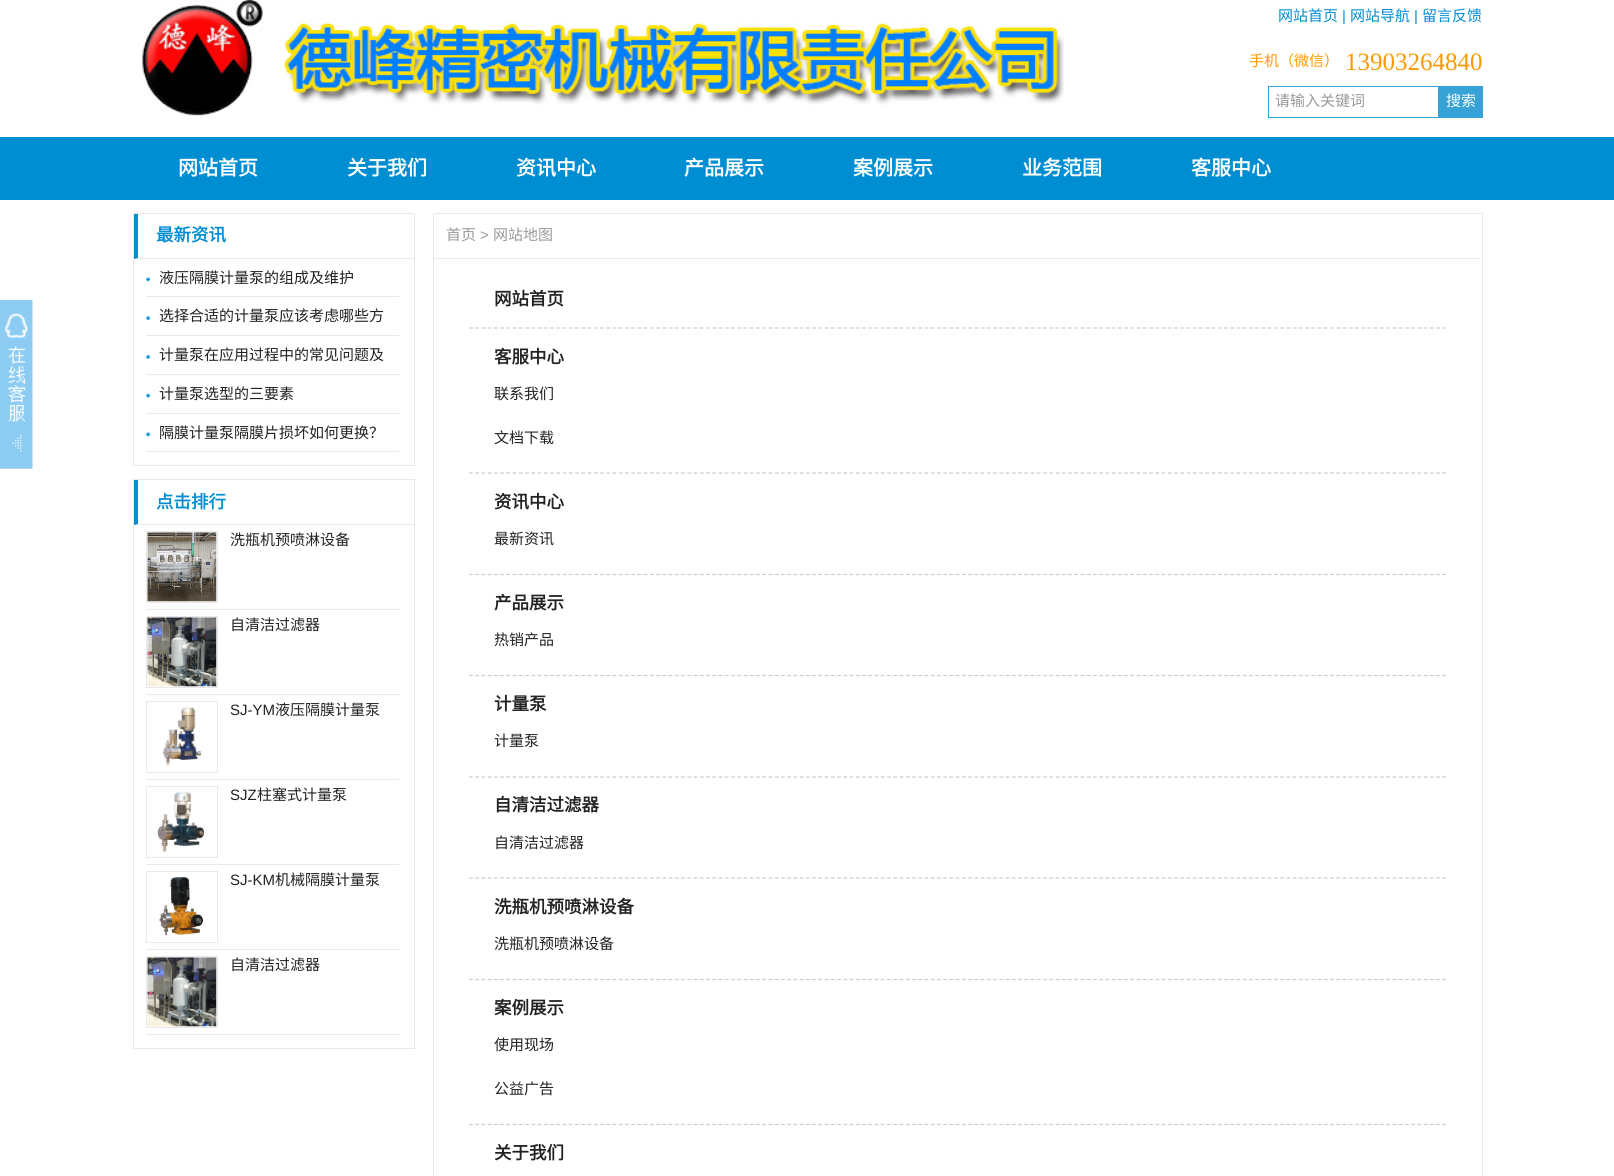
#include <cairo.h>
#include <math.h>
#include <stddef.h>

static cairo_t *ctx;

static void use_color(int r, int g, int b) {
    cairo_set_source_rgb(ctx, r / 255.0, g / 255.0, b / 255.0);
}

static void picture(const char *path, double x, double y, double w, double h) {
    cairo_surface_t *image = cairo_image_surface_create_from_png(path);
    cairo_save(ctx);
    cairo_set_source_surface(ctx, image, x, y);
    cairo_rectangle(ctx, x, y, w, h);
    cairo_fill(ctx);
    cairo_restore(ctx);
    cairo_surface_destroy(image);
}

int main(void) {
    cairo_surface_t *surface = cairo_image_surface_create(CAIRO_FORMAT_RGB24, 1614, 1176);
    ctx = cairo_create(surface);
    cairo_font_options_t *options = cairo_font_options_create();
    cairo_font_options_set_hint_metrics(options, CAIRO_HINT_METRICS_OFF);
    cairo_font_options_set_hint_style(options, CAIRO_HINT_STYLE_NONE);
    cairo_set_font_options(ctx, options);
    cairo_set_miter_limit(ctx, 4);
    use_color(255, 255, 255);
    cairo_paint(ctx);
    picture("img1.png", 142, 0, 922, 116);
    cairo_select_font_face(ctx, "Noto Sans CJK SC", CAIRO_FONT_SLANT_NORMAL, CAIRO_FONT_WEIGHT_NORMAL);
    cairo_set_font_size(ctx, 15);
    use_color(0, 142, 210);
    cairo_move_to(ctx, 1278, 21);
    cairo_show_text(ctx, "网站首页");
    cairo_select_font_face(ctx, "Liberation Sans", CAIRO_FONT_SLANT_NORMAL, CAIRO_FONT_WEIGHT_NORMAL);
    cairo_move_to(ctx, 1342, 21);
    cairo_show_text(ctx, "|");
    cairo_select_font_face(ctx, "Noto Sans CJK SC", CAIRO_FONT_SLANT_NORMAL, CAIRO_FONT_WEIGHT_NORMAL);
    cairo_move_to(ctx, 1350, 21);
    cairo_show_text(ctx, "网站导航");
    cairo_select_font_face(ctx, "Liberation Sans", CAIRO_FONT_SLANT_NORMAL, CAIRO_FONT_WEIGHT_NORMAL);
    cairo_move_to(ctx, 1414, 21);
    cairo_show_text(ctx, "|");
    cairo_select_font_face(ctx, "Noto Sans CJK SC", CAIRO_FONT_SLANT_NORMAL, CAIRO_FONT_WEIGHT_NORMAL);
    cairo_move_to(ctx, 1422, 21);
    cairo_show_text(ctx, "留言反馈");
    use_color(255, 153, 0);
    cairo_move_to(ctx, 1249, 66);
    cairo_show_text(ctx, "手机（微信）");
    cairo_select_font_face(ctx, "Liberation Serif", CAIRO_FONT_SLANT_NORMAL, CAIRO_FONT_WEIGHT_NORMAL);
    cairo_set_font_size(ctx, 25);
    cairo_move_to(ctx, 1345, 70);
    cairo_show_text(ctx, "13903264840");
    cairo_rectangle(ctx, 1268.5, 86.5, 170, 31);
    use_color(54, 162, 213);
    cairo_set_line_width(ctx, 1);
    cairo_stroke(ctx);
    cairo_select_font_face(ctx, "Noto Sans CJK SC", CAIRO_FONT_SLANT_NORMAL, CAIRO_FONT_WEIGHT_NORMAL);
    cairo_set_font_size(ctx, 15);
    use_color(153, 153, 153);
    cairo_move_to(ctx, 1275, 106);
    cairo_show_text(ctx, "请输入关键词");
    use_color(54, 162, 213);
    cairo_rectangle(ctx, 1439, 86, 44, 32);
    cairo_fill(ctx);
    use_color(255, 255, 255);
    cairo_move_to(ctx, 1446, 106);
    cairo_show_text(ctx, "搜索");
    use_color(0, 142, 210);
    cairo_rectangle(ctx, 0, 137, 1614, 63);
    cairo_fill(ctx);
    cairo_select_font_face(ctx, "Noto Sans CJK SC", CAIRO_FONT_SLANT_NORMAL, CAIRO_FONT_WEIGHT_BOLD);
    cairo_set_font_size(ctx, 20);
    use_color(255, 255, 255);
    cairo_move_to(ctx, 178, 175);
    cairo_show_text(ctx, "网站首页");
    cairo_move_to(ctx, 347, 175);
    cairo_show_text(ctx, "关于我们");
    cairo_move_to(ctx, 516, 175);
    cairo_show_text(ctx, "资讯中心");
    cairo_move_to(ctx, 684, 175);
    cairo_show_text(ctx, "产品展示");
    cairo_move_to(ctx, 853, 175);
    cairo_show_text(ctx, "案例展示");
    cairo_move_to(ctx, 1022, 175);
    cairo_show_text(ctx, "业务范围");
    cairo_move_to(ctx, 1191, 175);
    cairo_show_text(ctx, "客服中心");
    picture("img2.png", 0, 300, 33, 169);
    cairo_rectangle(ctx, 133.5, 213.5, 281, 252);
    use_color(233, 233, 233);
    cairo_stroke(ctx);
    cairo_new_path(ctx);
    cairo_move_to(ctx, 414, 259);
    cairo_line_to(ctx, 134, 259);
    cairo_line_to(ctx, 138, 258);
    cairo_line_to(ctx, 414, 258);
    cairo_close_path(ctx);
    cairo_fill(ctx);
    use_color(0, 142, 210);
    cairo_new_path(ctx);
    cairo_move_to(ctx, 134, 259);
    cairo_line_to(ctx, 134, 214);
    cairo_line_to(ctx, 138, 214);
    cairo_line_to(ctx, 138, 258);
    cairo_close_path(ctx);
    cairo_fill(ctx);
    cairo_set_font_size(ctx, 17.5);
    cairo_move_to(ctx, 156, 241);
    cairo_show_text(ctx, "最新资讯");
    use_color(233, 233, 233);
    cairo_rectangle(ctx, 146, 296, 253, 1);
    cairo_fill(ctx);
    picture("img3.png", 146, 277, 4, 5);
    cairo_select_font_face(ctx, "Noto Sans CJK SC", CAIRO_FONT_SLANT_NORMAL, CAIRO_FONT_WEIGHT_NORMAL);
    cairo_set_font_size(ctx, 15);
    use_color(34, 34, 34);
    cairo_move_to(ctx, 159, 283);
    cairo_show_text(ctx, "液压隔膜计量泵的组成及维护");
    use_color(233, 233, 233);
    cairo_rectangle(ctx, 146, 335, 253, 1);
    cairo_fill(ctx);
    picture("img4.png", 146, 316, 4, 4);
    use_color(34, 34, 34);
    cairo_move_to(ctx, 159, 321);
    cairo_show_text(ctx, "选择合适的计量泵应该考虑哪些方");
    use_color(233, 233, 233);
    cairo_rectangle(ctx, 146, 374, 253, 1);
    cairo_fill(ctx);
    picture("img5.png", 146, 354, 4, 5);
    use_color(34, 34, 34);
    cairo_move_to(ctx, 159, 360);
    cairo_show_text(ctx, "计量泵在应用过程中的常见问题及");
    use_color(233, 233, 233);
    cairo_rectangle(ctx, 146, 413, 253, 1);
    cairo_fill(ctx);
    picture("img6.png", 146, 393, 4, 5);
    use_color(34, 34, 34);
    cairo_move_to(ctx, 159, 399);
    cairo_show_text(ctx, "计量泵选型的三要素");
    use_color(233, 233, 233);
    cairo_rectangle(ctx, 146, 451, 253, 1);
    cairo_fill(ctx);
    picture("img3.png", 146, 432, 4, 5);
    use_color(34, 34, 34);
    cairo_move_to(ctx, 159, 438);
    cairo_show_text(ctx, "隔膜计量泵隔膜片损坏如何更换？");
    cairo_rectangle(ctx, 133.5, 479.5, 281, 569);
    use_color(233, 233, 233);
    cairo_stroke(ctx);
    cairo_new_path(ctx);
    cairo_move_to(ctx, 414, 525);
    cairo_line_to(ctx, 134, 525);
    cairo_line_to(ctx, 138, 524);
    cairo_line_to(ctx, 414, 524);
    cairo_close_path(ctx);
    cairo_fill(ctx);
    use_color(0, 142, 210);
    cairo_new_path(ctx);
    cairo_move_to(ctx, 134, 525);
    cairo_line_to(ctx, 134, 480);
    cairo_line_to(ctx, 138, 480);
    cairo_line_to(ctx, 138, 524);
    cairo_close_path(ctx);
    cairo_fill(ctx);
    cairo_select_font_face(ctx, "Noto Sans CJK SC", CAIRO_FONT_SLANT_NORMAL, CAIRO_FONT_WEIGHT_BOLD);
    cairo_set_font_size(ctx, 17.5);
    cairo_move_to(ctx, 156, 508);
    cairo_show_text(ctx, "点击排行");
    use_color(233, 233, 233);
    cairo_rectangle(ctx, 146, 609, 253, 1);
    cairo_fill(ctx);
    cairo_rectangle(ctx, 146.5, 531.5, 71, 71);
    cairo_stroke(ctx);
    picture("img7.png", 147, 532, 70, 70);
    cairo_select_font_face(ctx, "Noto Sans CJK SC", CAIRO_FONT_SLANT_NORMAL, CAIRO_FONT_WEIGHT_NORMAL);
    cairo_set_font_size(ctx, 15);
    use_color(34, 34, 34);
    cairo_move_to(ctx, 230, 545);
    cairo_show_text(ctx, "洗瓶机预喷淋设备");
    use_color(233, 233, 233);
    cairo_rectangle(ctx, 146, 694, 253, 1);
    cairo_fill(ctx);
    cairo_rectangle(ctx, 146.5, 616.5, 71, 71);
    cairo_stroke(ctx);
    picture("img8.png", 147, 617, 70, 70);
    use_color(34, 34, 34);
    cairo_move_to(ctx, 230, 630);
    cairo_show_text(ctx, "自清洁过滤器");
    use_color(233, 233, 233);
    cairo_rectangle(ctx, 146, 779, 253, 1);
    cairo_fill(ctx);
    cairo_rectangle(ctx, 146.5, 701.5, 71, 71);
    cairo_stroke(ctx);
    picture("img9.png", 162, 707, 40, 59);
    cairo_select_font_face(ctx, "Liberation Sans", CAIRO_FONT_SLANT_NORMAL, CAIRO_FONT_WEIGHT_NORMAL);
    use_color(34, 34, 34);
    cairo_move_to(ctx, 230, 715);
    cairo_show_text(ctx, "SJ-YM");
    cairo_select_font_face(ctx, "Noto Sans CJK SC", CAIRO_FONT_SLANT_NORMAL, CAIRO_FONT_WEIGHT_NORMAL);
    cairo_move_to(ctx, 275, 715);
    cairo_show_text(ctx, "液压隔膜计量泵");
    use_color(233, 233, 233);
    cairo_rectangle(ctx, 146, 864, 253, 1);
    cairo_fill(ctx);
    cairo_rectangle(ctx, 146.5, 786.5, 71, 71);
    cairo_stroke(ctx);
    picture("img10.png", 157, 792, 48, 60);
    cairo_select_font_face(ctx, "Liberation Sans", CAIRO_FONT_SLANT_NORMAL, CAIRO_FONT_WEIGHT_NORMAL);
    use_color(34, 34, 34);
    cairo_move_to(ctx, 230, 800);
    cairo_show_text(ctx, "SJZ");
    cairo_select_font_face(ctx, "Noto Sans CJK SC", CAIRO_FONT_SLANT_NORMAL, CAIRO_FONT_WEIGHT_NORMAL);
    cairo_move_to(ctx, 257, 800);
    cairo_show_text(ctx, "柱塞式计量泵");
    use_color(233, 233, 233);
    cairo_rectangle(ctx, 146, 949, 253, 1);
    cairo_fill(ctx);
    cairo_rectangle(ctx, 146.5, 871.5, 71, 71);
    cairo_stroke(ctx);
    picture("img11.png", 159, 876, 45, 60);
    cairo_select_font_face(ctx, "Liberation Sans", CAIRO_FONT_SLANT_NORMAL, CAIRO_FONT_WEIGHT_NORMAL);
    use_color(34, 34, 34);
    cairo_move_to(ctx, 230, 885);
    cairo_show_text(ctx, "SJ-KM");
    cairo_select_font_face(ctx, "Noto Sans CJK SC", CAIRO_FONT_SLANT_NORMAL, CAIRO_FONT_WEIGHT_NORMAL);
    cairo_move_to(ctx, 275, 885);
    cairo_show_text(ctx, "机械隔膜计量泵");
    use_color(233, 233, 233);
    cairo_rectangle(ctx, 146, 1034, 253, 1);
    cairo_fill(ctx);
    cairo_rectangle(ctx, 146.5, 956.5, 71, 71);
    cairo_stroke(ctx);
    picture("img12.png", 147, 957, 70, 70);
    use_color(34, 34, 34);
    cairo_move_to(ctx, 230, 970);
    cairo_show_text(ctx, "自清洁过滤器");
    cairo_rectangle(ctx, 433.5, 213.5, 1049, 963);
    use_color(233, 233, 233);
    cairo_stroke(ctx);
    cairo_rectangle(ctx, 434, 258, 1047, 1);
    cairo_fill(ctx);
    use_color(153, 153, 153);
    cairo_move_to(ctx, 446, 240);
    cairo_show_text(ctx, "首页");
    cairo_select_font_face(ctx, "Liberation Sans", CAIRO_FONT_SLANT_NORMAL, CAIRO_FONT_WEIGHT_NORMAL);
    cairo_move_to(ctx, 480, 240);
    cairo_show_text(ctx, ">");
    cairo_select_font_face(ctx, "Noto Sans CJK SC", CAIRO_FONT_SLANT_NORMAL, CAIRO_FONT_WEIGHT_NORMAL);
    cairo_move_to(ctx, 493, 240);
    cairo_show_text(ctx, "网站地图");
    cairo_new_path(ctx);
    cairo_move_to(ctx, 469, 328);
    cairo_line_to(ctx, 1446, 328);
    use_color(204, 204, 204);
    cairo_set_line_width(ctx, 1.2);
    cairo_set_dash(ctx, (double[]){3.75, 2.49}, 2, 0);
    cairo_stroke(ctx);
    cairo_select_font_face(ctx, "Noto Sans CJK SC", CAIRO_FONT_SLANT_NORMAL, CAIRO_FONT_WEIGHT_BOLD);
    cairo_set_font_size(ctx, 17.5);
    use_color(34, 34, 34);
    cairo_move_to(ctx, 494, 305);
    cairo_show_text(ctx, "网站首页");
    cairo_new_path(ctx);
    cairo_move_to(ctx, 469, 473);
    cairo_line_to(ctx, 1446, 473);
    use_color(204, 204, 204);
    cairo_stroke(ctx);
    use_color(34, 34, 34);
    cairo_move_to(ctx, 494, 363);
    cairo_show_text(ctx, "客服中心");
    cairo_select_font_face(ctx, "Noto Sans CJK SC", CAIRO_FONT_SLANT_NORMAL, CAIRO_FONT_WEIGHT_NORMAL);
    cairo_set_font_size(ctx, 15);
    cairo_move_to(ctx, 494, 399);
    cairo_show_text(ctx, "联系我们");
    cairo_move_to(ctx, 494, 443);
    cairo_show_text(ctx, "文档下载");
    cairo_new_path(ctx);
    cairo_move_to(ctx, 469, 574.5);
    cairo_line_to(ctx, 1446, 574.5);
    use_color(204, 204, 204);
    cairo_stroke(ctx);
    cairo_select_font_face(ctx, "Noto Sans CJK SC", CAIRO_FONT_SLANT_NORMAL, CAIRO_FONT_WEIGHT_BOLD);
    cairo_set_font_size(ctx, 17.5);
    use_color(34, 34, 34);
    cairo_move_to(ctx, 494, 508);
    cairo_show_text(ctx, "资讯中心");
    cairo_select_font_face(ctx, "Noto Sans CJK SC", CAIRO_FONT_SLANT_NORMAL, CAIRO_FONT_WEIGHT_NORMAL);
    cairo_set_font_size(ctx, 15);
    cairo_move_to(ctx, 494, 544);
    cairo_show_text(ctx, "最新资讯");
    cairo_new_path(ctx);
    cairo_move_to(ctx, 469, 675.5);
    cairo_line_to(ctx, 1446, 675.5);
    use_color(204, 204, 204);
    cairo_stroke(ctx);
    cairo_select_font_face(ctx, "Noto Sans CJK SC", CAIRO_FONT_SLANT_NORMAL, CAIRO_FONT_WEIGHT_BOLD);
    cairo_set_font_size(ctx, 17.5);
    use_color(34, 34, 34);
    cairo_move_to(ctx, 494, 609);
    cairo_show_text(ctx, "产品展示");
    cairo_select_font_face(ctx, "Noto Sans CJK SC", CAIRO_FONT_SLANT_NORMAL, CAIRO_FONT_WEIGHT_NORMAL);
    cairo_set_font_size(ctx, 15);
    cairo_move_to(ctx, 494, 645);
    cairo_show_text(ctx, "热销产品");
    cairo_new_path(ctx);
    cairo_move_to(ctx, 469, 777);
    cairo_line_to(ctx, 1446, 777);
    use_color(204, 204, 204);
    cairo_stroke(ctx);
    cairo_select_font_face(ctx, "Noto Sans CJK SC", CAIRO_FONT_SLANT_NORMAL, CAIRO_FONT_WEIGHT_BOLD);
    cairo_set_font_size(ctx, 17.5);
    use_color(34, 34, 34);
    cairo_move_to(ctx, 494, 710);
    cairo_show_text(ctx, "计量泵");
    cairo_select_font_face(ctx, "Noto Sans CJK SC", CAIRO_FONT_SLANT_NORMAL, CAIRO_FONT_WEIGHT_NORMAL);
    cairo_set_font_size(ctx, 15);
    cairo_move_to(ctx, 494, 746);
    cairo_show_text(ctx, "计量泵");
    cairo_new_path(ctx);
    cairo_move_to(ctx, 469, 878);
    cairo_line_to(ctx, 1446, 878);
    use_color(204, 204, 204);
    cairo_stroke(ctx);
    cairo_select_font_face(ctx, "Noto Sans CJK SC", CAIRO_FONT_SLANT_NORMAL, CAIRO_FONT_WEIGHT_BOLD);
    cairo_set_font_size(ctx, 17.5);
    use_color(34, 34, 34);
    cairo_move_to(ctx, 494, 811);
    cairo_show_text(ctx, "自清洁过滤器");
    cairo_select_font_face(ctx, "Noto Sans CJK SC", CAIRO_FONT_SLANT_NORMAL, CAIRO_FONT_WEIGHT_NORMAL);
    cairo_set_font_size(ctx, 15);
    cairo_move_to(ctx, 494, 848);
    cairo_show_text(ctx, "自清洁过滤器");
    cairo_new_path(ctx);
    cairo_move_to(ctx, 469, 979.5);
    cairo_line_to(ctx, 1446, 979.5);
    use_color(204, 204, 204);
    cairo_stroke(ctx);
    cairo_select_font_face(ctx, "Noto Sans CJK SC", CAIRO_FONT_SLANT_NORMAL, CAIRO_FONT_WEIGHT_BOLD);
    cairo_set_font_size(ctx, 17.5);
    use_color(34, 34, 34);
    cairo_move_to(ctx, 494, 913);
    cairo_show_text(ctx, "洗瓶机预喷淋设备");
    cairo_select_font_face(ctx, "Noto Sans CJK SC", CAIRO_FONT_SLANT_NORMAL, CAIRO_FONT_WEIGHT_NORMAL);
    cairo_set_font_size(ctx, 15);
    cairo_move_to(ctx, 494, 949);
    cairo_show_text(ctx, "洗瓶机预喷淋设备");
    cairo_new_path(ctx);
    cairo_move_to(ctx, 469, 1124.5);
    cairo_line_to(ctx, 1446, 1124.5);
    use_color(204, 204, 204);
    cairo_stroke(ctx);
    cairo_select_font_face(ctx, "Noto Sans CJK SC", CAIRO_FONT_SLANT_NORMAL, CAIRO_FONT_WEIGHT_BOLD);
    cairo_set_font_size(ctx, 17.5);
    use_color(34, 34, 34);
    cairo_move_to(ctx, 494, 1014);
    cairo_show_text(ctx, "案例展示");
    cairo_select_font_face(ctx, "Noto Sans CJK SC", CAIRO_FONT_SLANT_NORMAL, CAIRO_FONT_WEIGHT_NORMAL);
    cairo_set_font_size(ctx, 15);
    cairo_move_to(ctx, 494, 1050);
    cairo_show_text(ctx, "使用现场");
    cairo_move_to(ctx, 494, 1094);
    cairo_show_text(ctx, "公益广告");
    cairo_select_font_face(ctx, "Noto Sans CJK SC", CAIRO_FONT_SLANT_NORMAL, CAIRO_FONT_WEIGHT_BOLD);
    cairo_set_font_size(ctx, 17.5);
    cairo_move_to(ctx, 494, 1159);
    cairo_show_text(ctx, "关于我们");
    cairo_surface_write_to_png(surface, "result.png");
    cairo_font_options_destroy(options);
    cairo_destroy(ctx);
    cairo_surface_destroy(surface);
    return 0;
}
